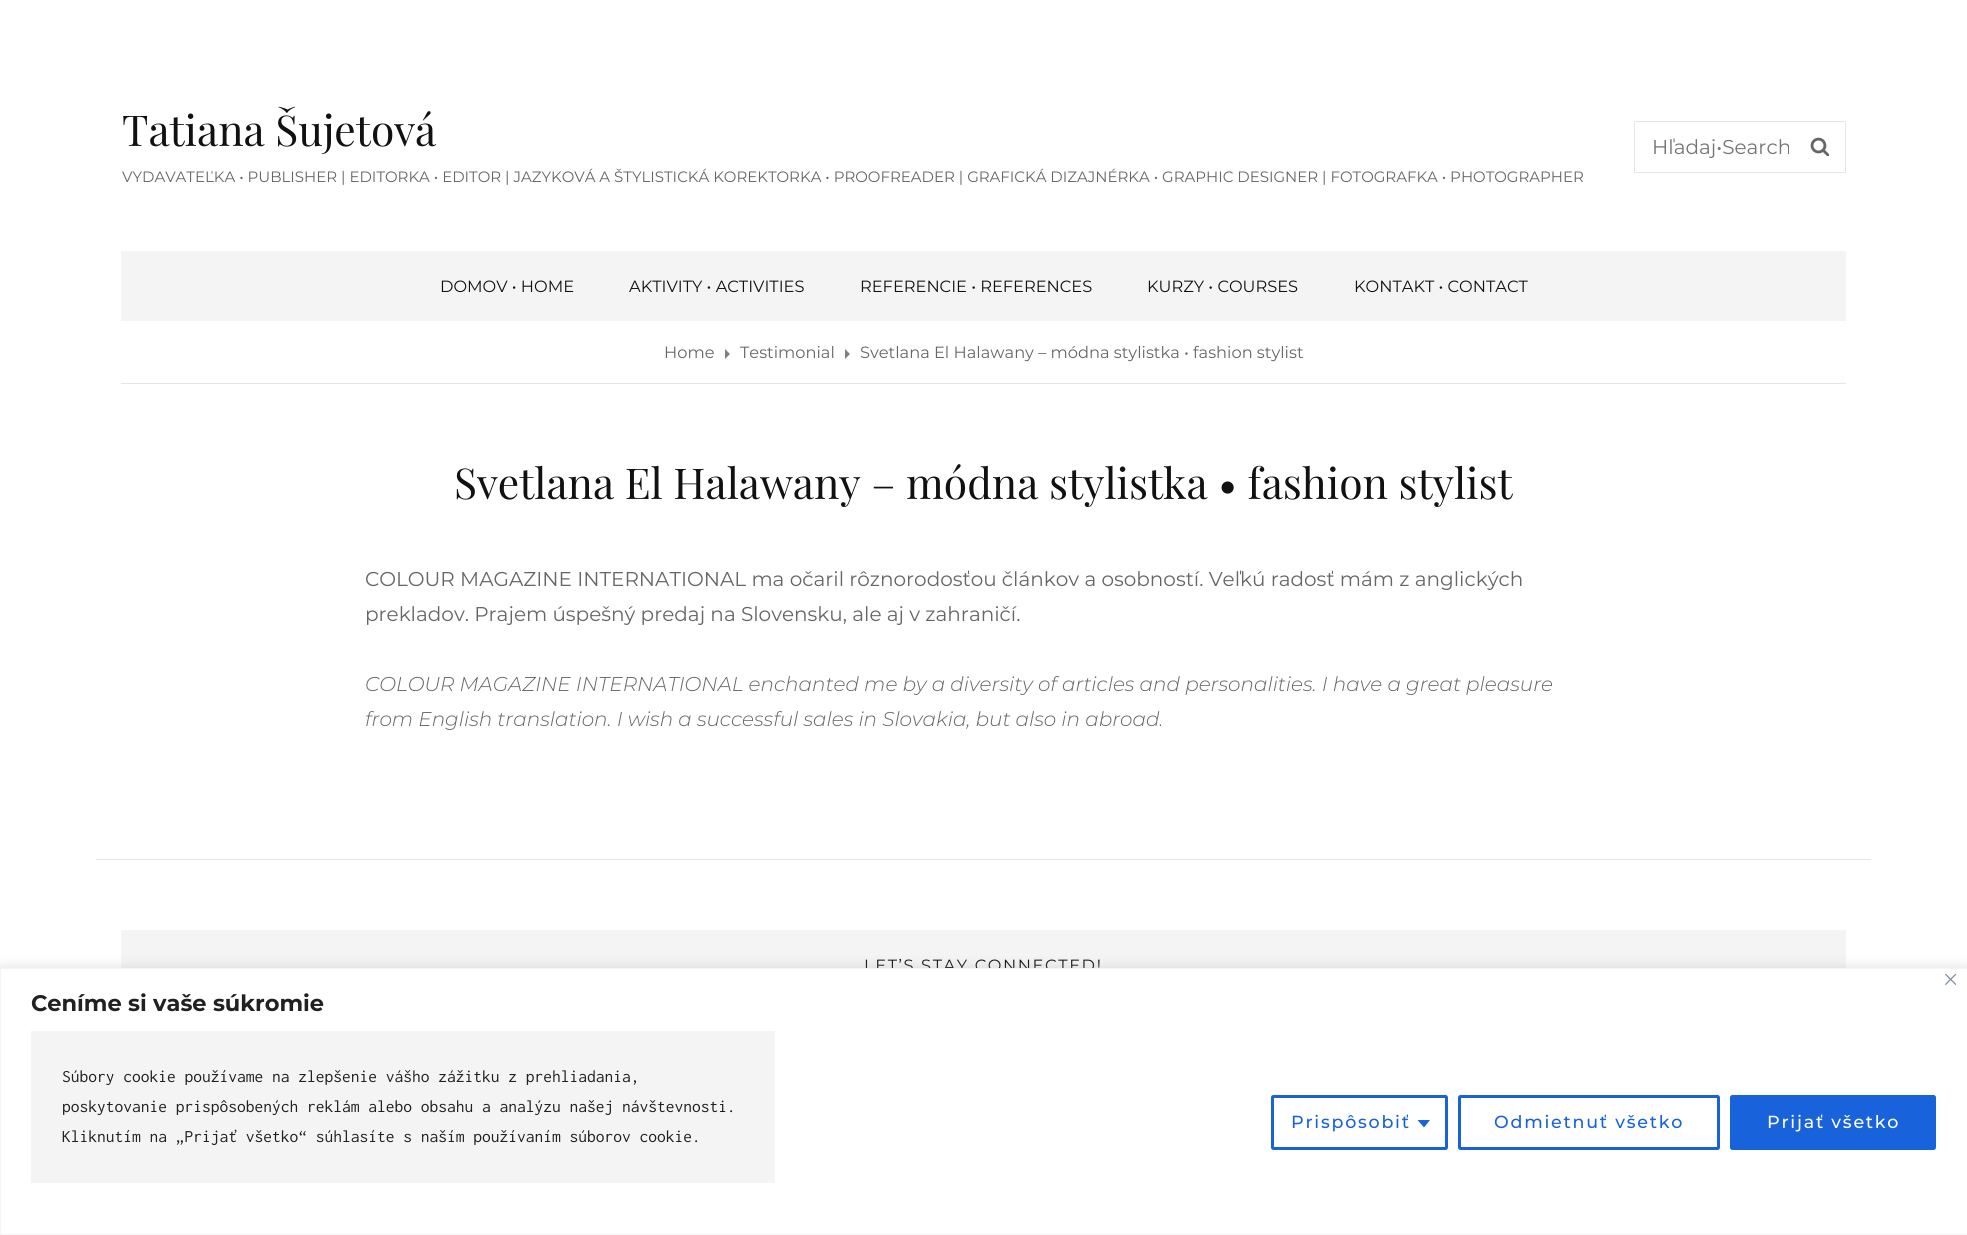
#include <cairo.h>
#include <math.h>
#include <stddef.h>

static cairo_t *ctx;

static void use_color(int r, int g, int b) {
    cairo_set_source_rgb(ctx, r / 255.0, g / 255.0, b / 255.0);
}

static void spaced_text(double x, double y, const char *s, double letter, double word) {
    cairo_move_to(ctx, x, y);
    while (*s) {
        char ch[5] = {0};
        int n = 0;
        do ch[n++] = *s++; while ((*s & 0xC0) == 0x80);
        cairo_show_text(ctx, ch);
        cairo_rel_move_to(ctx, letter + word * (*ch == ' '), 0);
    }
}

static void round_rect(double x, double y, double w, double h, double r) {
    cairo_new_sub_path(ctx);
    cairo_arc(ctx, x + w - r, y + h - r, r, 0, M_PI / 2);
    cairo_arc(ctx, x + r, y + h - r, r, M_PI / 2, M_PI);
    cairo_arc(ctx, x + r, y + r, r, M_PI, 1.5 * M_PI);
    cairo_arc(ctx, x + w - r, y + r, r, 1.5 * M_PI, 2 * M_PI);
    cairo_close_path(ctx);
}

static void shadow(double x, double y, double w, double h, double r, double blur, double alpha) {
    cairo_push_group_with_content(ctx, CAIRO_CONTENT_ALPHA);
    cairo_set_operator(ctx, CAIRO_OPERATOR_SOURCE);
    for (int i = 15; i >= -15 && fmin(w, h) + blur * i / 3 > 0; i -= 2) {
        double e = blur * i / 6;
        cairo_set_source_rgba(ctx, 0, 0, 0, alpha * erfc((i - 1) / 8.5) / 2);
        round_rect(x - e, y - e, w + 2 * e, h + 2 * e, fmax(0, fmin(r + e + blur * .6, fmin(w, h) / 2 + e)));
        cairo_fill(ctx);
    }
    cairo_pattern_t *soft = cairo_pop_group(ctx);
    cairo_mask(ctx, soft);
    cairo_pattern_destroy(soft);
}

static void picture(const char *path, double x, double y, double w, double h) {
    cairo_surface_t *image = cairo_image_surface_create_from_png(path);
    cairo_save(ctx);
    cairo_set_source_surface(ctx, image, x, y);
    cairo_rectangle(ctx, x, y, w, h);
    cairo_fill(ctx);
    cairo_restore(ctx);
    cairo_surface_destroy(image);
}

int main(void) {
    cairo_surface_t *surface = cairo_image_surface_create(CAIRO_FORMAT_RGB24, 1967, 1235);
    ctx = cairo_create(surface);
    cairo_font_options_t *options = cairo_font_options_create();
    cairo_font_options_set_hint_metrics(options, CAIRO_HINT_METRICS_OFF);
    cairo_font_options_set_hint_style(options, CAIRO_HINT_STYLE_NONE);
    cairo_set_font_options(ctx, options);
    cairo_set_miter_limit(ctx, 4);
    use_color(255, 255, 255);
    cairo_paint(ctx);
    cairo_select_font_face(ctx, "Playfair Display", CAIRO_FONT_SLANT_NORMAL, CAIRO_FONT_WEIGHT_NORMAL);
    cairo_set_font_size(ctx, 42.5);
    use_color(17, 17, 17);
    cairo_move_to(ctx, 122, 146);
    cairo_show_text(ctx, "Tatiana Šujetová");
    cairo_select_font_face(ctx, "Montserrat", CAIRO_FONT_SLANT_NORMAL, CAIRO_FONT_WEIGHT_NORMAL);
    cairo_set_font_size(ctx, 15);
    use_color(102, 102, 102);
    cairo_move_to(ctx, 122, 182);
    cairo_show_text(ctx, "VYDAVATEĽKA • PUBLISHER | EDITORKA • EDITOR | JAZYKOVÁ A ŠTYLISTICKÁ KOREKTORKA • PROOFREADER | GRAFICKÁ DIZAJNÉRKA • GRAPHIC DESIGNER | FOTOGRAFKA • PHOTOGRAPHER");
    cairo_rectangle(ctx, 1634.5, 121.5, 211, 51);
    use_color(229, 229, 229);
    cairo_set_line_width(ctx, 1);
    cairo_stroke(ctx);
    cairo_save(ctx);
    cairo_rectangle(ctx, 1653, 135, 136, 24);
    cairo_clip(ctx);
    cairo_set_font_size(ctx, 20);
    use_color(117, 117, 117);
    cairo_move_to(ctx, 1652, 154);
    cairo_show_text(ctx, "Hľadaj•Search");
    cairo_restore(ctx);
    picture("img1.png", 1810, 137, 20, 19);
    use_color(244, 244, 245);
    cairo_rectangle(ctx, 121, 251, 1725, 70);
    cairo_fill(ctx);
    cairo_set_font_size(ctx, 16.25);
    use_color(17, 17, 17);
    cairo_move_to(ctx, 440, 292);
    cairo_show_text(ctx, "DOMOV • HOME");
    cairo_move_to(ctx, 629, 292);
    cairo_show_text(ctx, "AKTIVITY • ACTIVITIES");
    cairo_move_to(ctx, 860, 292);
    cairo_show_text(ctx, "REFERENCIE • REFERENCES");
    cairo_move_to(ctx, 1147, 292);
    cairo_show_text(ctx, "KURZY • COURSES");
    cairo_move_to(ctx, 1354, 292);
    cairo_show_text(ctx, "KONTAKT • CONTACT");
    use_color(102, 102, 102);
    cairo_move_to(ctx, 664, 358);
    cairo_show_text(ctx, "Home");
    use_color(128, 128, 128);
    cairo_new_path(ctx);
    cairo_move_to(ctx, 725, 359);
    cairo_line_to(ctx, 725, 349);
    cairo_line_to(ctx, 730, 354);
    cairo_close_path(ctx);
    cairo_fill(ctx);
    use_color(102, 102, 102);
    cairo_move_to(ctx, 740, 358);
    cairo_show_text(ctx, "Testimonial");
    use_color(128, 128, 128);
    cairo_new_path(ctx);
    cairo_move_to(ctx, 845, 359);
    cairo_line_to(ctx, 845, 349);
    cairo_line_to(ctx, 850, 354);
    cairo_close_path(ctx);
    cairo_fill(ctx);
    use_color(102, 102, 102);
    cairo_move_to(ctx, 860, 358);
    cairo_show_text(ctx, "Svetlana El Halawany – módna stylistka • fashion stylist");
    use_color(229, 229, 229);
    cairo_rectangle(ctx, 121, 383, 1725, 1);
    cairo_fill(ctx);
    cairo_select_font_face(ctx, "Playfair Display", CAIRO_FONT_SLANT_NORMAL, CAIRO_FONT_WEIGHT_NORMAL);
    cairo_set_font_size(ctx, 42.5);
    use_color(17, 17, 17);
    cairo_move_to(ctx, 454, 499);
    cairo_show_text(ctx, "Svetlana El Halawany – módna stylistka • fashion stylist");
    cairo_select_font_face(ctx, "Montserrat", CAIRO_FONT_SLANT_NORMAL, CAIRO_FONT_WEIGHT_NORMAL);
    cairo_set_font_size(ctx, 20);
    use_color(102, 102, 102);
    cairo_move_to(ctx, 365, 586);
    cairo_show_text(ctx, "COLOUR MAGAZINE INTERNATIONAL ma očaril rôznorodosťou článkov a osobností. Veľkú radosť mám z anglických");
    cairo_move_to(ctx, 365, 621);
    cairo_show_text(ctx, "prekladov. Prajem úspešný predaj na Slovensku, ale aj v zahraničí.");
    cairo_select_font_face(ctx, "Montserrat Light", CAIRO_FONT_SLANT_ITALIC, CAIRO_FONT_WEIGHT_NORMAL);
    cairo_move_to(ctx, 365, 691);
    cairo_show_text(ctx, "COLOUR MAGAZINE INTERNATIONAL enchanted me by a diversity of articles and personalities. I have a great pleasure");
    cairo_move_to(ctx, 365, 726);
    cairo_show_text(ctx, "from English translation. I wish a successful sales in Slovakia, but also in abroad.");
    use_color(229, 229, 229);
    cairo_rectangle(ctx, 96, 859, 1775, 1);
    cairo_fill(ctx);
    use_color(244, 244, 245);
    cairo_rectangle(ctx, 121, 930, 1725, 38);
    cairo_fill(ctx);
    cairo_select_font_face(ctx, "Montserrat", CAIRO_FONT_SLANT_NORMAL, CAIRO_FONT_WEIGHT_NORMAL);
    cairo_set_font_size(ctx, 16.25);
    use_color(17, 17, 17);
    spaced_text(864, 971, "LET’S STAY CONNECTED!", 1.6, 0);
    use_color(172, 171, 171);
    shadow(0, 966, 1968, 268, 0, 6, 0.3);
    use_color(255, 255, 255);
    cairo_rectangle(ctx, 0.5, 968.5, 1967, 266);
    cairo_fill_preserve(ctx);
    use_color(244, 244, 244);
    cairo_stroke(ctx);
    picture("img2.png", 1945, 974, 11, 11);
    cairo_select_font_face(ctx, "Montserrat", CAIRO_FONT_SLANT_NORMAL, CAIRO_FONT_WEIGHT_BOLD);
    cairo_set_font_size(ctx, 22.5);
    use_color(33, 33, 33);
    cairo_move_to(ctx, 31, 1011);
    cairo_show_text(ctx, "Ceníme si vaše súkromie");
    use_color(244, 244, 245);
    cairo_rectangle(ctx, 31, 1031, 744, 152);
    cairo_fill(ctx);
    cairo_select_font_face(ctx, "Inconsolata", CAIRO_FONT_SLANT_NORMAL, CAIRO_FONT_WEIGHT_NORMAL);
    cairo_set_font_size(ctx, 17.5);
    use_color(33, 33, 33);
    cairo_move_to(ctx, 62, 1082);
    cairo_show_text(ctx, "Súbory cookie používame na zlepšenie vášho zážitku z prehliadania,");
    cairo_move_to(ctx, 62, 1112);
    cairo_show_text(ctx, "poskytovanie prispôsobených reklám alebo obsahu a analýzu našej návštevnosti.");
    cairo_move_to(ctx, 62, 1142);
    cairo_show_text(ctx, "Kliknutím na „Prijať všetko“ súhlasíte s naším používaním súborov cookie.");
    round_rect(1272.5, 1096.5, 174, 52, 1);
    use_color(24, 99, 220);
    cairo_set_line_width(ctx, 3);
    cairo_stroke(ctx);
    cairo_select_font_face(ctx, "Montserrat Medium", CAIRO_FONT_SLANT_NORMAL, CAIRO_FONT_WEIGHT_NORMAL);
    spaced_text(1291, 1128, "Prispôsobiť", 1.75, 0);
    cairo_new_path(ctx);
    cairo_move_to(ctx, 1417.5, 1120);
    cairo_line_to(ctx, 1430, 1120);
    cairo_line_to(ctx, 1424, 1127.5);
    cairo_close_path(ctx);
    cairo_fill(ctx);
    round_rect(1459.5, 1096.5, 259, 52, 1);
    cairo_stroke(ctx);
    spaced_text(1494, 1128, "Odmietnuť všetko", 1.75, 0);
    round_rect(1731.5, 1096.5, 203, 52, 1);
    cairo_fill_preserve(ctx);
    cairo_stroke(ctx);
    use_color(255, 255, 255);
    spaced_text(1767, 1128, "Prijať všetko", 1.75, 0);
    cairo_surface_write_to_png(surface, "result.png");
    cairo_font_options_destroy(options);
    cairo_destroy(ctx);
    cairo_surface_destroy(surface);
    return 0;
}
